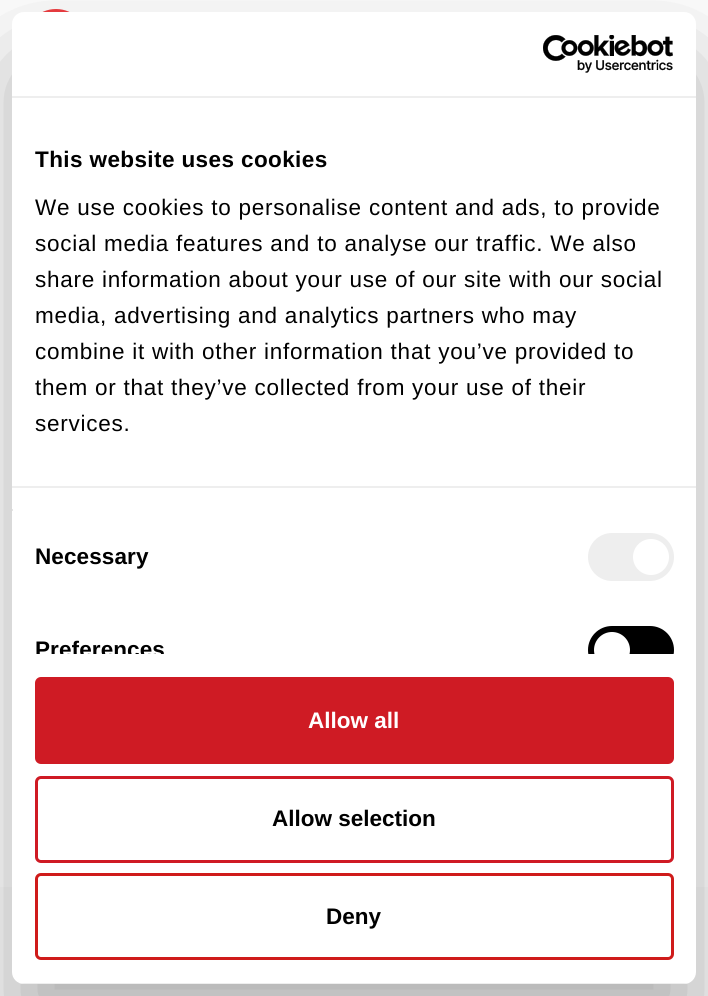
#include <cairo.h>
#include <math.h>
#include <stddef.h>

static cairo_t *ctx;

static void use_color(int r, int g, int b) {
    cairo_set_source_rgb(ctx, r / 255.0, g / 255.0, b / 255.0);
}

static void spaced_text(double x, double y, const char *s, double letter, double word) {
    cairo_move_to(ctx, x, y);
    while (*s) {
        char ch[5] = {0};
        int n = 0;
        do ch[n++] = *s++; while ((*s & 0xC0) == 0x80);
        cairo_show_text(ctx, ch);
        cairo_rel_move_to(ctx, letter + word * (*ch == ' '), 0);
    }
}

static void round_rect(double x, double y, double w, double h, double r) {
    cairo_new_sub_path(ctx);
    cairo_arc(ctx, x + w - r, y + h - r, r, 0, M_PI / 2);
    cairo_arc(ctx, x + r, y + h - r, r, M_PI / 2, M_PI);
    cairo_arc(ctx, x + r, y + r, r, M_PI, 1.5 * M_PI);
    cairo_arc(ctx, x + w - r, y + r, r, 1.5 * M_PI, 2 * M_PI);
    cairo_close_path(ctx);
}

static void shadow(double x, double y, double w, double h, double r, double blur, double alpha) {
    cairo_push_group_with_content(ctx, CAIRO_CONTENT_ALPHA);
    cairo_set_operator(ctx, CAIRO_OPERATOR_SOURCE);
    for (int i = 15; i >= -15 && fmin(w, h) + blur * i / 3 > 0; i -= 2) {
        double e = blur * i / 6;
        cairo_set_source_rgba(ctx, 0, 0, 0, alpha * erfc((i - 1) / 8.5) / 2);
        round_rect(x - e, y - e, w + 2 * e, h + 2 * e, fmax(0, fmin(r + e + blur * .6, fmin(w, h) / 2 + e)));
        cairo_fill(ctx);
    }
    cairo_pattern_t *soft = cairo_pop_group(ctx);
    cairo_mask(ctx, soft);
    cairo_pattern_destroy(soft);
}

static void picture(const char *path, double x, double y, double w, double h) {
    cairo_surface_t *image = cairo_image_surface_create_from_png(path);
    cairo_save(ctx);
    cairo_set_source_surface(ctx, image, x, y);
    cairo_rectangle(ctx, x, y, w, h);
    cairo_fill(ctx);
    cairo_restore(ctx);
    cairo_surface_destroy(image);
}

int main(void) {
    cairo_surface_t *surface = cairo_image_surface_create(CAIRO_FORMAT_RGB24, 708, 996);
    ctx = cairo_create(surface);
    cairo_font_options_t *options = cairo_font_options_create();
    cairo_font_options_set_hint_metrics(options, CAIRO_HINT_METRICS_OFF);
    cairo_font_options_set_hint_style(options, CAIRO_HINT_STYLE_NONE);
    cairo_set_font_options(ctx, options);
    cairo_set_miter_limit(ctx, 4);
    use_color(255, 255, 255);
    cairo_paint(ctx);
    use_color(239, 62, 66);
    cairo_arc(ctx, 56, 41, 32, 0, 2 * M_PI);
    cairo_fill(ctx);
    use_color(250, 250, 250);
    cairo_rectangle(ctx, 0, 887, 708, 109);
    cairo_fill(ctx);
    use_color(0, 0, 0);
    shadow(12, 60, 684, 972, 12, 51, 0.3);
    use_color(255, 255, 255);
    round_rect(12, 12, 684, 972, 12);
    cairo_fill(ctx);
    use_color(238, 238, 238);
    cairo_rectangle(ctx, 12, 96, 684, 2);
    cairo_fill(ctx);
    picture("img1.png", 543, 35, 130, 38);
    cairo_rectangle(ctx, 12, 486, 684, 2);
    cairo_fill(ctx);
    cairo_select_font_face(ctx, "Liberation Sans", CAIRO_FONT_SLANT_NORMAL, CAIRO_FONT_WEIGHT_BOLD);
    cairo_set_font_size(ctx, 22.5);
    use_color(0, 0, 0);
    spaced_text(35, 167, "This website uses cookies", 0.4, 0);
    cairo_select_font_face(ctx, "Liberation Sans", CAIRO_FONT_SLANT_NORMAL, CAIRO_FONT_WEIGHT_NORMAL);
    spaced_text(35, 215, "We use cookies to personalise content and ads, to provide", 0.75, 0);
    spaced_text(35, 251, "social media features and to analyse our traffic. We also", 0.75, 0);
    spaced_text(35, 287, "share information about your use of our site with our social", 0.75, 0);
    spaced_text(35, 323, "media, advertising and analytics partners who may", 0.75, 0);
    spaced_text(35, 359, "combine it with other information that you’ve provided to", 0.75, 0);
    spaced_text(35, 395, "them or that they’ve collected from your use of their", 0.75, 0);
    spaced_text(35, 431, "services.", 0.75, 0);
    use_color(229, 229, 229);
    cairo_rectangle(ctx, 12, 509, 1, 2);
    cairo_fill(ctx);
    cairo_select_font_face(ctx, "Liberation Sans", CAIRO_FONT_SLANT_NORMAL, CAIRO_FONT_WEIGHT_BOLD);
    use_color(0, 0, 0);
    spaced_text(35, 564, "Necessary", 0.1, 0);
    use_color(238, 238, 238);
    round_rect(588, 533, 86, 48, 24);
    cairo_fill(ctx);
    use_color(255, 255, 255);
    cairo_arc(ctx, 651, 557, 18, 0, 2 * M_PI);
    cairo_fill(ctx);
    cairo_save(ctx);
    cairo_rectangle(ctx, 12, 98, 684, 556);
    cairo_clip(ctx);
    use_color(0, 0, 0);
    spaced_text(35, 657, "Preferences", 0.1, 0);
    round_rect(588, 626, 86, 48, 24);
    cairo_fill(ctx);
    use_color(255, 255, 255);
    cairo_arc(ctx, 612, 650, 18, 0, 2 * M_PI);
    cairo_fill(ctx);
    cairo_restore(ctx);
    cairo_save(ctx);
    round_rect(12, 12, 684, 972, 12);
    cairo_clip(ctx);
    use_color(238, 238, 238);
    cairo_rectangle(ctx, 12, 983, 684, 1);
    cairo_fill(ctx);
    cairo_restore(ctx);
    use_color(207, 27, 36);
    round_rect(36.5, 678.5, 636, 84, 4.5);
    cairo_fill_preserve(ctx);
    cairo_set_line_width(ctx, 3);
    cairo_stroke(ctx);
    use_color(255, 255, 255);
    cairo_move_to(ctx, 308, 728);
    cairo_show_text(ctx, "Allow all");
    round_rect(36.5, 777.5, 636, 84, 4.5);
    use_color(207, 26, 36);
    cairo_stroke(ctx);
    use_color(0, 0, 0);
    cairo_move_to(ctx, 272, 826);
    cairo_show_text(ctx, "Allow selection");
    round_rect(36.5, 874.5, 636, 84, 4.5);
    use_color(207, 27, 26);
    cairo_stroke(ctx);
    use_color(0, 0, 0);
    cairo_move_to(ctx, 326, 924);
    cairo_show_text(ctx, "Deny");
    cairo_surface_write_to_png(surface, "result.png");
    cairo_font_options_destroy(options);
    cairo_destroy(ctx);
    cairo_surface_destroy(surface);
    return 0;
}
